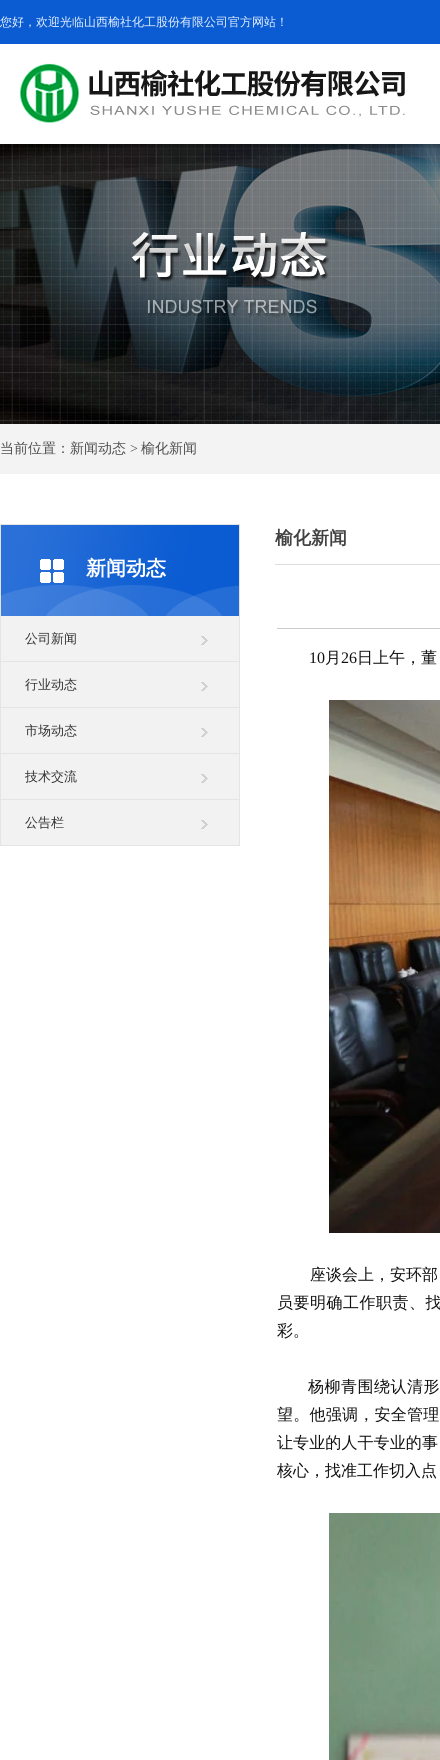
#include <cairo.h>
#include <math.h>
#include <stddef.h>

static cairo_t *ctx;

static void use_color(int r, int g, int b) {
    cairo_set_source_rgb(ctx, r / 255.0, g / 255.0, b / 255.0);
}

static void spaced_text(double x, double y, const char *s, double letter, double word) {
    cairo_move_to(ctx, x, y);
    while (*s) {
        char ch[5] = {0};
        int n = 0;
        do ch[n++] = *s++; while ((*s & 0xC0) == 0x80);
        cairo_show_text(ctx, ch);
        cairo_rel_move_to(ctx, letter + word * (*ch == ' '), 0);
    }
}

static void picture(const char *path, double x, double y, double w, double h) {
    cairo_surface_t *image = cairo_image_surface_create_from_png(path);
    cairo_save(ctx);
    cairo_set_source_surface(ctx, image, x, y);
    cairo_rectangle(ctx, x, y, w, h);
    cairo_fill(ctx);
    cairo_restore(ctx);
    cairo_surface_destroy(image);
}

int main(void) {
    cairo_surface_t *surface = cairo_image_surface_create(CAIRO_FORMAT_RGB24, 440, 1760);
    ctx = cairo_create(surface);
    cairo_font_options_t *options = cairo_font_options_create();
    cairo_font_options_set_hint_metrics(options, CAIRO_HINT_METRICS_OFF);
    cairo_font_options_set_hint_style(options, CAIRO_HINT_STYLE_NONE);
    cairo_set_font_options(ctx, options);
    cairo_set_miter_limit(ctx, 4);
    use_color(255, 255, 255);
    cairo_paint(ctx);
    use_color(11, 92, 210);
    cairo_rectangle(ctx, 0, 0, 440, 44);
    cairo_fill(ctx);
    cairo_select_font_face(ctx, "WenQuanYi Zen Hei Medium", CAIRO_FONT_SLANT_NORMAL, CAIRO_FONT_WEIGHT_NORMAL);
    cairo_set_font_size(ctx, 12);
    use_color(229, 240, 255);
    cairo_move_to(ctx, 0, 26);
    cairo_show_text(ctx, "您好，欢迎光临山西榆社化工股份有限公司官方网站！");
    picture("img1.png", 20, 63, 385, 60);
    picture("img2.png", 0, 144, 440, 280);
    picture("img3.png", 3, 144, 437, 5);
    use_color(243, 243, 243);
    cairo_rectangle(ctx, 0, 424, 440, 50);
    cairo_fill(ctx);
    cairo_set_font_size(ctx, 14);
    use_color(80, 80, 80);
    cairo_move_to(ctx, 0, 453);
    cairo_show_text(ctx, "当前位置：新闻动态");
    cairo_select_font_face(ctx, "Liberation Serif", CAIRO_FONT_SLANT_NORMAL, CAIRO_FONT_WEIGHT_NORMAL);
    cairo_move_to(ctx, 130, 453);
    cairo_show_text(ctx, ">");
    cairo_select_font_face(ctx, "WenQuanYi Zen Hei Medium", CAIRO_FONT_SLANT_NORMAL, CAIRO_FONT_WEIGHT_NORMAL);
    cairo_move_to(ctx, 141, 453);
    cairo_show_text(ctx, "榆化新闻");
    use_color(228, 228, 228);
    cairo_rectangle(ctx, 0, 524, 240, 1);
    cairo_fill(ctx);
    cairo_rectangle(ctx, 239, 524, 1, 322);
    cairo_fill(ctx);
    cairo_rectangle(ctx, 0, 524, 1, 322);
    cairo_fill(ctx);
    picture("img4.png", 1, 525, 238, 91);
    cairo_select_font_face(ctx, "WenQuanYi Zen Hei", CAIRO_FONT_SLANT_NORMAL, CAIRO_FONT_WEIGHT_BOLD);
    cairo_set_font_size(ctx, 20);
    use_color(255, 255, 255);
    cairo_move_to(ctx, 86, 575);
    cairo_show_text(ctx, "新闻动态");
    use_color(242, 242, 242);
    cairo_rectangle(ctx, 1, 616, 238, 45);
    cairo_fill(ctx);
    picture("img5.png", 201, 636, 7, 9);
    use_color(228, 228, 228);
    cairo_rectangle(ctx, 1, 661, 238, 1);
    cairo_fill(ctx);
    cairo_select_font_face(ctx, "WenQuanYi Zen Hei Medium", CAIRO_FONT_SLANT_NORMAL, CAIRO_FONT_WEIGHT_NORMAL);
    cairo_set_font_size(ctx, 13);
    use_color(51, 51, 51);
    cairo_move_to(ctx, 25, 643);
    cairo_show_text(ctx, "公司新闻");
    use_color(242, 242, 242);
    cairo_rectangle(ctx, 1, 662, 238, 45);
    cairo_fill(ctx);
    picture("img5.png", 201, 682, 7, 9);
    use_color(228, 228, 228);
    cairo_rectangle(ctx, 1, 707, 238, 1);
    cairo_fill(ctx);
    use_color(51, 51, 51);
    cairo_move_to(ctx, 25, 689);
    cairo_show_text(ctx, "行业动态");
    use_color(242, 242, 242);
    cairo_rectangle(ctx, 1, 708, 238, 45);
    cairo_fill(ctx);
    picture("img5.png", 201, 728, 7, 9);
    use_color(228, 228, 228);
    cairo_rectangle(ctx, 1, 753, 238, 1);
    cairo_fill(ctx);
    use_color(51, 51, 51);
    cairo_move_to(ctx, 25, 735);
    cairo_show_text(ctx, "市场动态");
    use_color(242, 242, 242);
    cairo_rectangle(ctx, 1, 754, 238, 45);
    cairo_fill(ctx);
    picture("img5.png", 201, 774, 7, 9);
    use_color(228, 228, 228);
    cairo_rectangle(ctx, 1, 799, 238, 1);
    cairo_fill(ctx);
    use_color(51, 51, 51);
    cairo_move_to(ctx, 25, 781);
    cairo_show_text(ctx, "技术交流");
    use_color(242, 242, 242);
    cairo_rectangle(ctx, 1, 800, 238, 45);
    cairo_fill(ctx);
    picture("img5.png", 201, 820, 7, 9);
    use_color(228, 228, 228);
    cairo_rectangle(ctx, 1, 845, 238, 1);
    cairo_fill(ctx);
    use_color(51, 51, 51);
    cairo_move_to(ctx, 25, 827);
    cairo_show_text(ctx, "公告栏");
    use_color(221, 221, 221);
    cairo_rectangle(ctx, 275, 564, 165, 1);
    cairo_fill(ctx);
    cairo_select_font_face(ctx, "WenQuanYi Zen Hei", CAIRO_FONT_SLANT_NORMAL, CAIRO_FONT_WEIGHT_BOLD);
    cairo_set_font_size(ctx, 18);
    use_color(65, 65, 65);
    cairo_move_to(ctx, 275, 544);
    cairo_show_text(ctx, "榆化新闻");
    use_color(204, 204, 204);
    cairo_rectangle(ctx, 277, 628, 163, 1);
    cairo_fill(ctx);
    cairo_select_font_face(ctx, "Liberation Serif", CAIRO_FONT_SLANT_NORMAL, CAIRO_FONT_WEIGHT_NORMAL);
    cairo_set_font_size(ctx, 16);
    use_color(16, 16, 16);
    cairo_move_to(ctx, 309, 663);
    cairo_show_text(ctx, "10");
    cairo_select_font_face(ctx, "WenQuanYi Zen Hei Medium", CAIRO_FONT_SLANT_NORMAL, CAIRO_FONT_WEIGHT_NORMAL);
    cairo_move_to(ctx, 325, 663);
    cairo_show_text(ctx, "月");
    cairo_select_font_face(ctx, "Liberation Serif", CAIRO_FONT_SLANT_NORMAL, CAIRO_FONT_WEIGHT_NORMAL);
    cairo_move_to(ctx, 341, 663);
    cairo_show_text(ctx, "26");
    cairo_select_font_face(ctx, "WenQuanYi Zen Hei Medium", CAIRO_FONT_SLANT_NORMAL, CAIRO_FONT_WEIGHT_NORMAL);
    cairo_move_to(ctx, 357, 663);
    cairo_show_text(ctx, "日上午，董");
    picture("img6.png", 329, 700, 111, 533);
    cairo_move_to(ctx, 310, 1280);
    cairo_show_text(ctx, "座谈会上，安环部");
    spaced_text(277, 1308, "员要明确工作职责、找", 0.5, 0);
    cairo_move_to(ctx, 277, 1336);
    cairo_show_text(ctx, "彩。");
    spaced_text(308, 1392, "杨柳青围绕认清形", 0.5, 0);
    spaced_text(277, 1420, "望。他强调，安全管理", 0.25, 0);
    spaced_text(277, 1448, "让专业的人干专业的事", 0.1, 0);
    cairo_move_to(ctx, 277, 1476);
    cairo_show_text(ctx, "核心，找准工作切入点");
    picture("img7.png", 329, 1513, 111, 247);
    cairo_surface_write_to_png(surface, "result.png");
    cairo_font_options_destroy(options);
    cairo_destroy(ctx);
    cairo_surface_destroy(surface);
    return 0;
}
